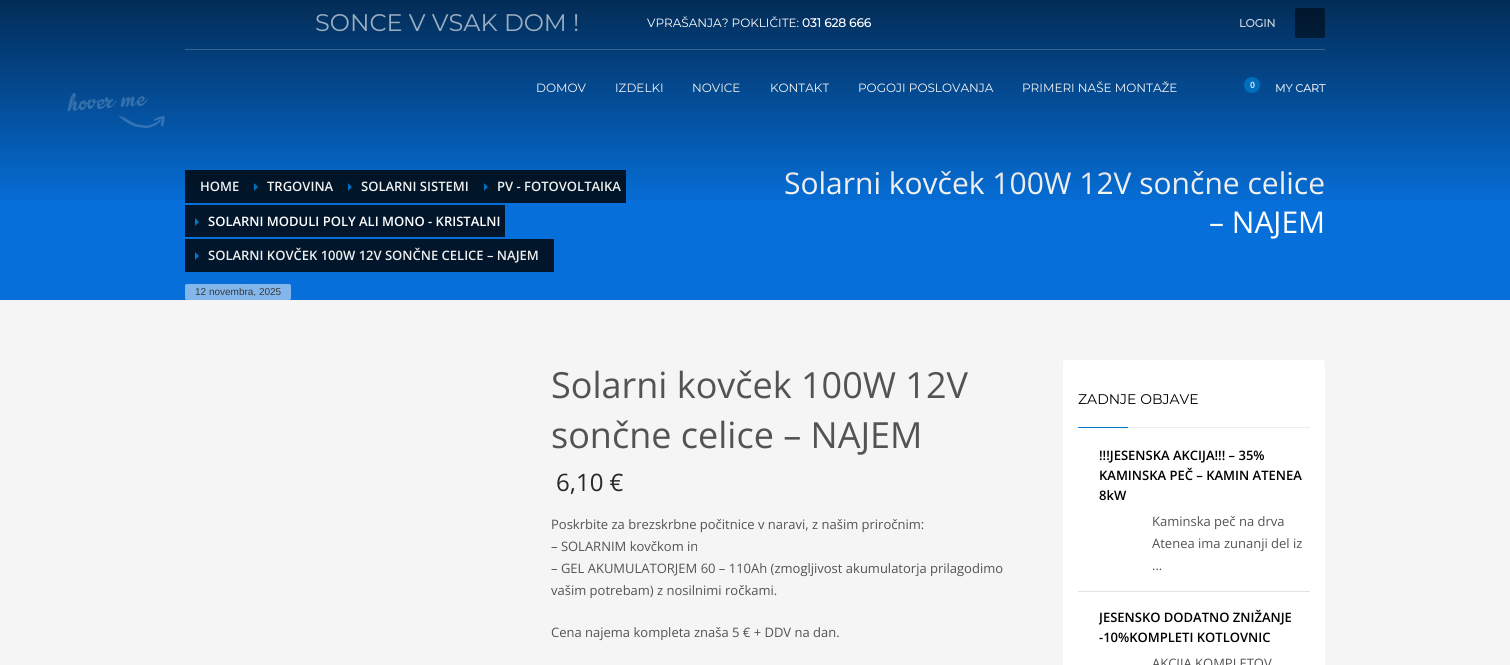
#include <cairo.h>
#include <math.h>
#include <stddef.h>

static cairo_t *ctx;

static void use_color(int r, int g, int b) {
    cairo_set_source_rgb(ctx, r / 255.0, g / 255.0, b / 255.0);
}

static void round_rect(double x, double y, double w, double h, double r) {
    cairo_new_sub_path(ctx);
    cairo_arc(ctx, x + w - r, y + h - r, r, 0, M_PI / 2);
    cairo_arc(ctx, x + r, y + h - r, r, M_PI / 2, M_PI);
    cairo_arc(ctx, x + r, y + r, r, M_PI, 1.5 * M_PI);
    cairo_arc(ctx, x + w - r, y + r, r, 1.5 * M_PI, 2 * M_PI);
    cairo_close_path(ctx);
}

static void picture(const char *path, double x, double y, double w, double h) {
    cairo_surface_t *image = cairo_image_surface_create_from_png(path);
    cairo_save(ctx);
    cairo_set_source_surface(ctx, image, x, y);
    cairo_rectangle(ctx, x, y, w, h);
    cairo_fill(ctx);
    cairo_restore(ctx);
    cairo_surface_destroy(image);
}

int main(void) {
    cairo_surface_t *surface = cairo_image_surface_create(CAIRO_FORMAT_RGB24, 1510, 665);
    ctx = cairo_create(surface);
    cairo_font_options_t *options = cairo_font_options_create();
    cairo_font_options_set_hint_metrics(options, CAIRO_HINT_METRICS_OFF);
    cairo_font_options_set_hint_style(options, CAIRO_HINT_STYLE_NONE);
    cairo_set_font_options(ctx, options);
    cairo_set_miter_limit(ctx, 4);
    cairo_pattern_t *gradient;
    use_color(245, 245, 245);
    cairo_paint(ctx);
    use_color(6, 111, 217);
    cairo_rectangle(ctx, 0, 0, 1510, 300);
    cairo_fill(ctx);
    use_color(1, 22, 43);
    cairo_rectangle(ctx, 185, 170, 441, 33);
    cairo_fill(ctx);
    cairo_select_font_face(ctx, "Open Sans SemiBold", CAIRO_FONT_SLANT_NORMAL, CAIRO_FONT_WEIGHT_NORMAL);
    cairo_set_font_size(ctx, 13);
    use_color(255, 255, 255);
    cairo_move_to(ctx, 200, 191);
    cairo_show_text(ctx, "HOME");
    use_color(0, 119, 202);
    cairo_new_path(ctx);
    cairo_move_to(ctx, 254, 191);
    cairo_line_to(ctx, 254, 183);
    cairo_line_to(ctx, 258, 187);
    cairo_close_path(ctx);
    cairo_fill(ctx);
    use_color(255, 255, 255);
    cairo_move_to(ctx, 267, 191);
    cairo_show_text(ctx, "TRGOVINA");
    use_color(0, 119, 202);
    cairo_new_path(ctx);
    cairo_move_to(ctx, 348, 191);
    cairo_line_to(ctx, 348, 183);
    cairo_line_to(ctx, 352, 187);
    cairo_close_path(ctx);
    cairo_fill(ctx);
    use_color(255, 255, 255);
    cairo_move_to(ctx, 361, 191);
    cairo_show_text(ctx, "SOLARNI SISTEMI");
    use_color(0, 119, 202);
    cairo_new_path(ctx);
    cairo_move_to(ctx, 484, 191);
    cairo_line_to(ctx, 484, 183);
    cairo_line_to(ctx, 488, 187);
    cairo_close_path(ctx);
    cairo_fill(ctx);
    use_color(255, 255, 255);
    cairo_move_to(ctx, 497, 191);
    cairo_show_text(ctx, "PV - FOTOVOLTAIKA");
    cairo_select_font_face(ctx, "Open Sans", CAIRO_FONT_SLANT_NORMAL, CAIRO_FONT_WEIGHT_NORMAL);
    cairo_set_font_size(ctx, 30);
    cairo_move_to(ctx, 784, 194);
    cairo_show_text(ctx, "Solarni kovček 100W 12V sončne celice");
    gradient = cairo_pattern_create_linear(755, 0, 755, 207);
    cairo_pattern_add_color_stop_rgba(gradient, 0, 0, 0, 0, 0.6);
    cairo_pattern_add_color_stop_rgba(gradient, 1, 0, 0, 0, 0);
    cairo_set_source(ctx, gradient);
    cairo_pattern_destroy(gradient);
    cairo_rectangle(ctx, 0, 0, 1510, 200);
    cairo_fill(ctx);
    cairo_select_font_face(ctx, "Montserrat Thin", CAIRO_FONT_SLANT_NORMAL, CAIRO_FONT_WEIGHT_NORMAL);
    cairo_set_font_size(ctx, 24);
    use_color(154, 174, 193);
    cairo_move_to(ctx, 315, 31);
    cairo_show_text(ctx, "SONCE V VSAK DOM !");
    cairo_set_font_size(ctx, 12);
    use_color(255, 255, 255);
    cairo_move_to(ctx, 647, 27);
    cairo_show_text(ctx, "VPRAŠANJA? POKLIČITE:");
    cairo_select_font_face(ctx, "Montserrat", CAIRO_FONT_SLANT_NORMAL, CAIRO_FONT_WEIGHT_BOLD);
    cairo_move_to(ctx, 802, 27);
    cairo_show_text(ctx, "031 628 666");
    cairo_set_font_size(ctx, 11);
    use_color(205, 214, 224);
    cairo_move_to(ctx, 1239, 27);
    cairo_show_text(ctx, "LOGIN");
    cairo_set_source_rgba(ctx, 0, 0, 0, 0.5);
    round_rect(1295, 8, 30, 30, 2);
    cairo_fill(ctx);
    use_color(54, 99, 146);
    cairo_rectangle(ctx, 185, 49, 1140, 1);
    cairo_fill(ctx);
    cairo_select_font_face(ctx, "Montserrat Thin", CAIRO_FONT_SLANT_NORMAL, CAIRO_FONT_WEIGHT_NORMAL);
    cairo_set_font_size(ctx, 12);
    use_color(245, 245, 245);
    cairo_move_to(ctx, 536, 92);
    cairo_show_text(ctx, "DOMOV");
    cairo_move_to(ctx, 615, 92);
    cairo_show_text(ctx, "IZDELKI");
    cairo_move_to(ctx, 692, 92);
    cairo_show_text(ctx, "NOVICE");
    cairo_move_to(ctx, 770, 92);
    cairo_show_text(ctx, "KONTAKT");
    cairo_move_to(ctx, 858, 92);
    cairo_show_text(ctx, "POGOJI POSLOVANJA");
    cairo_move_to(ctx, 1022, 92);
    cairo_show_text(ctx, "PRIMERI NAŠE MONTAŽE");
    cairo_set_source_rgba(ctx, 0, 0.467, 0.792, 0.8);
    cairo_new_path(ctx);
    cairo_arc(ctx, 1252, 85, 8, 0, 2 * M_PI);
    cairo_fill(ctx);
    cairo_select_font_face(ctx, "Liberation Sans", CAIRO_FONT_SLANT_NORMAL, CAIRO_FONT_WEIGHT_BOLD);
    cairo_set_font_size(ctx, 9);
    use_color(204, 226, 242);
    cairo_move_to(ctx, 1250, 88);
    cairo_show_text(ctx, "0");
    cairo_select_font_face(ctx, "Montserrat", CAIRO_FONT_SLANT_NORMAL, CAIRO_FONT_WEIGHT_BOLD);
    cairo_set_font_size(ctx, 11);
    use_color(205, 219, 232);
    cairo_move_to(ctx, 1275, 92);
    cairo_show_text(ctx, "MY CART");
    picture("img1.png", 67, 93, 98, 35);
    use_color(1, 22, 43);
    cairo_rectangle(ctx, 185, 205, 320, 32);
    cairo_fill(ctx);
    use_color(0, 119, 202);
    cairo_new_path(ctx);
    cairo_move_to(ctx, 195, 226);
    cairo_line_to(ctx, 195, 218);
    cairo_line_to(ctx, 199, 222);
    cairo_close_path(ctx);
    cairo_fill(ctx);
    cairo_select_font_face(ctx, "Open Sans SemiBold", CAIRO_FONT_SLANT_NORMAL, CAIRO_FONT_WEIGHT_NORMAL);
    cairo_set_font_size(ctx, 13);
    use_color(255, 255, 255);
    cairo_move_to(ctx, 208, 226);
    cairo_show_text(ctx, "SOLARNI MODULI POLY ALI MONO - KRISTALNI");
    use_color(1, 22, 43);
    cairo_rectangle(ctx, 185, 239, 369, 33);
    cairo_fill(ctx);
    use_color(0, 119, 202);
    cairo_new_path(ctx);
    cairo_move_to(ctx, 195, 260);
    cairo_line_to(ctx, 195, 252);
    cairo_line_to(ctx, 199, 256);
    cairo_close_path(ctx);
    cairo_fill(ctx);
    use_color(238, 238, 238);
    cairo_move_to(ctx, 208, 260);
    cairo_show_text(ctx, "SOLARNI KOVČEK 100W 12V SONČNE CELICE – NAJEM");
    use_color(131, 183, 236);
    round_rect(185, 284, 106, 16, 2);
    cairo_fill(ctx);
    cairo_select_font_face(ctx, "Liberation Sans", CAIRO_FONT_SLANT_NORMAL, CAIRO_FONT_WEIGHT_NORMAL);
    cairo_set_font_size(ctx, 10);
    use_color(56, 56, 56);
    cairo_move_to(ctx, 195, 295);
    cairo_show_text(ctx, "12 novembra, 2025");
    cairo_select_font_face(ctx, "Open Sans", CAIRO_FONT_SLANT_NORMAL, CAIRO_FONT_WEIGHT_NORMAL);
    cairo_set_font_size(ctx, 30);
    use_color(255, 255, 255);
    cairo_move_to(ctx, 1209, 233);
    cairo_show_text(ctx, "– NAJEM");
    cairo_set_font_size(ctx, 36);
    use_color(83, 83, 83);
    cairo_move_to(ctx, 551, 398);
    cairo_show_text(ctx, "Solarni kovček 100W 12V");
    cairo_move_to(ctx, 551, 448);
    cairo_show_text(ctx, "sončne celice – NAJEM");
    cairo_set_font_size(ctx, 24);
    use_color(40, 40, 40);
    cairo_move_to(ctx, 556, 491);
    cairo_show_text(ctx, "6,10 €");
    cairo_set_font_size(ctx, 13);
    use_color(83, 83, 83);
    cairo_move_to(ctx, 551, 529);
    cairo_show_text(ctx, "Poskrbite za brezskrbne počitnice v naravi, z našim priročnim:");
    cairo_move_to(ctx, 551, 551);
    cairo_show_text(ctx, "– SOLARNIM kovčkom in");
    cairo_move_to(ctx, 551, 573);
    cairo_show_text(ctx, "– GEL AKUMULATORJEM 60 – 110Ah (zmogljivost akumulatorja prilagodimo");
    cairo_move_to(ctx, 551, 595);
    cairo_show_text(ctx, "vašim potrebam) z nosilnimi ročkami.");
    cairo_move_to(ctx, 551, 637);
    cairo_show_text(ctx, "Cena najema kompleta znaša 5 € + DDV na dan.");
    use_color(255, 255, 255);
    round_rect(1063, 360, 262, 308, 3);
    cairo_fill(ctx);
    cairo_select_font_face(ctx, "Montserrat Thin", CAIRO_FONT_SLANT_NORMAL, CAIRO_FONT_WEIGHT_NORMAL);
    cairo_set_font_size(ctx, 14);
    use_color(0, 0, 0);
    cairo_move_to(ctx, 1078, 404);
    cairo_show_text(ctx, "ZADNJE OBJAVE");
    use_color(0, 119, 202);
    cairo_rectangle(ctx, 1078, 427, 50, 1);
    cairo_fill(ctx);
    use_color(236, 236, 236);
    cairo_rectangle(ctx, 1128, 427, 182, 1);
    cairo_fill(ctx);
    use_color(227, 227, 227);
    cairo_rectangle(ctx, 1078, 591, 232, 1);
    cairo_fill(ctx);
    cairo_select_font_face(ctx, "Open Sans SemiBold", CAIRO_FONT_SLANT_NORMAL, CAIRO_FONT_WEIGHT_NORMAL);
    cairo_set_font_size(ctx, 13);
    use_color(0, 0, 0);
    cairo_move_to(ctx, 1099, 460);
    cairo_show_text(ctx, "!!!JESENSKA AKCIJA!!! – 35%");
    cairo_move_to(ctx, 1099, 480);
    cairo_show_text(ctx, "KAMINSKA PEČ – KAMIN ATENEA");
    cairo_move_to(ctx, 1099, 500);
    cairo_show_text(ctx, "8kW");
    cairo_select_font_face(ctx, "Open Sans", CAIRO_FONT_SLANT_NORMAL, CAIRO_FONT_WEIGHT_NORMAL);
    use_color(83, 83, 83);
    cairo_move_to(ctx, 1152, 526);
    cairo_show_text(ctx, "Kaminska peč na drva");
    cairo_move_to(ctx, 1152, 548);
    cairo_show_text(ctx, "Atenea ima zunanji del iz");
    cairo_move_to(ctx, 1152, 570);
    cairo_show_text(ctx, "...");
    cairo_save(ctx);
    cairo_rectangle(ctx, 1099, 607, 211, 40);
    cairo_clip(ctx);
    cairo_select_font_face(ctx, "Open Sans SemiBold", CAIRO_FONT_SLANT_NORMAL, CAIRO_FONT_WEIGHT_NORMAL);
    use_color(0, 0, 0);
    cairo_move_to(ctx, 1099, 622);
    cairo_show_text(ctx, "JESENSKO DODATNO ZNIŽANJE");
    cairo_restore(ctx);
    cairo_select_font_face(ctx, "Open Sans SemiBold", CAIRO_FONT_SLANT_NORMAL, CAIRO_FONT_WEIGHT_NORMAL);
    use_color(0, 0, 0);
    cairo_move_to(ctx, 1099, 642);
    cairo_show_text(ctx, "-10%KOMPLETI KOTLOVNIC");
    cairo_select_font_face(ctx, "Open Sans", CAIRO_FONT_SLANT_NORMAL, CAIRO_FONT_WEIGHT_NORMAL);
    use_color(83, 83, 83);
    cairo_move_to(ctx, 1152, 668);
    cairo_show_text(ctx, "AKCIJA KOMPLETOV");
    cairo_surface_write_to_png(surface, "result.png");
    cairo_font_options_destroy(options);
    cairo_destroy(ctx);
    cairo_surface_destroy(surface);
    return 0;
}
